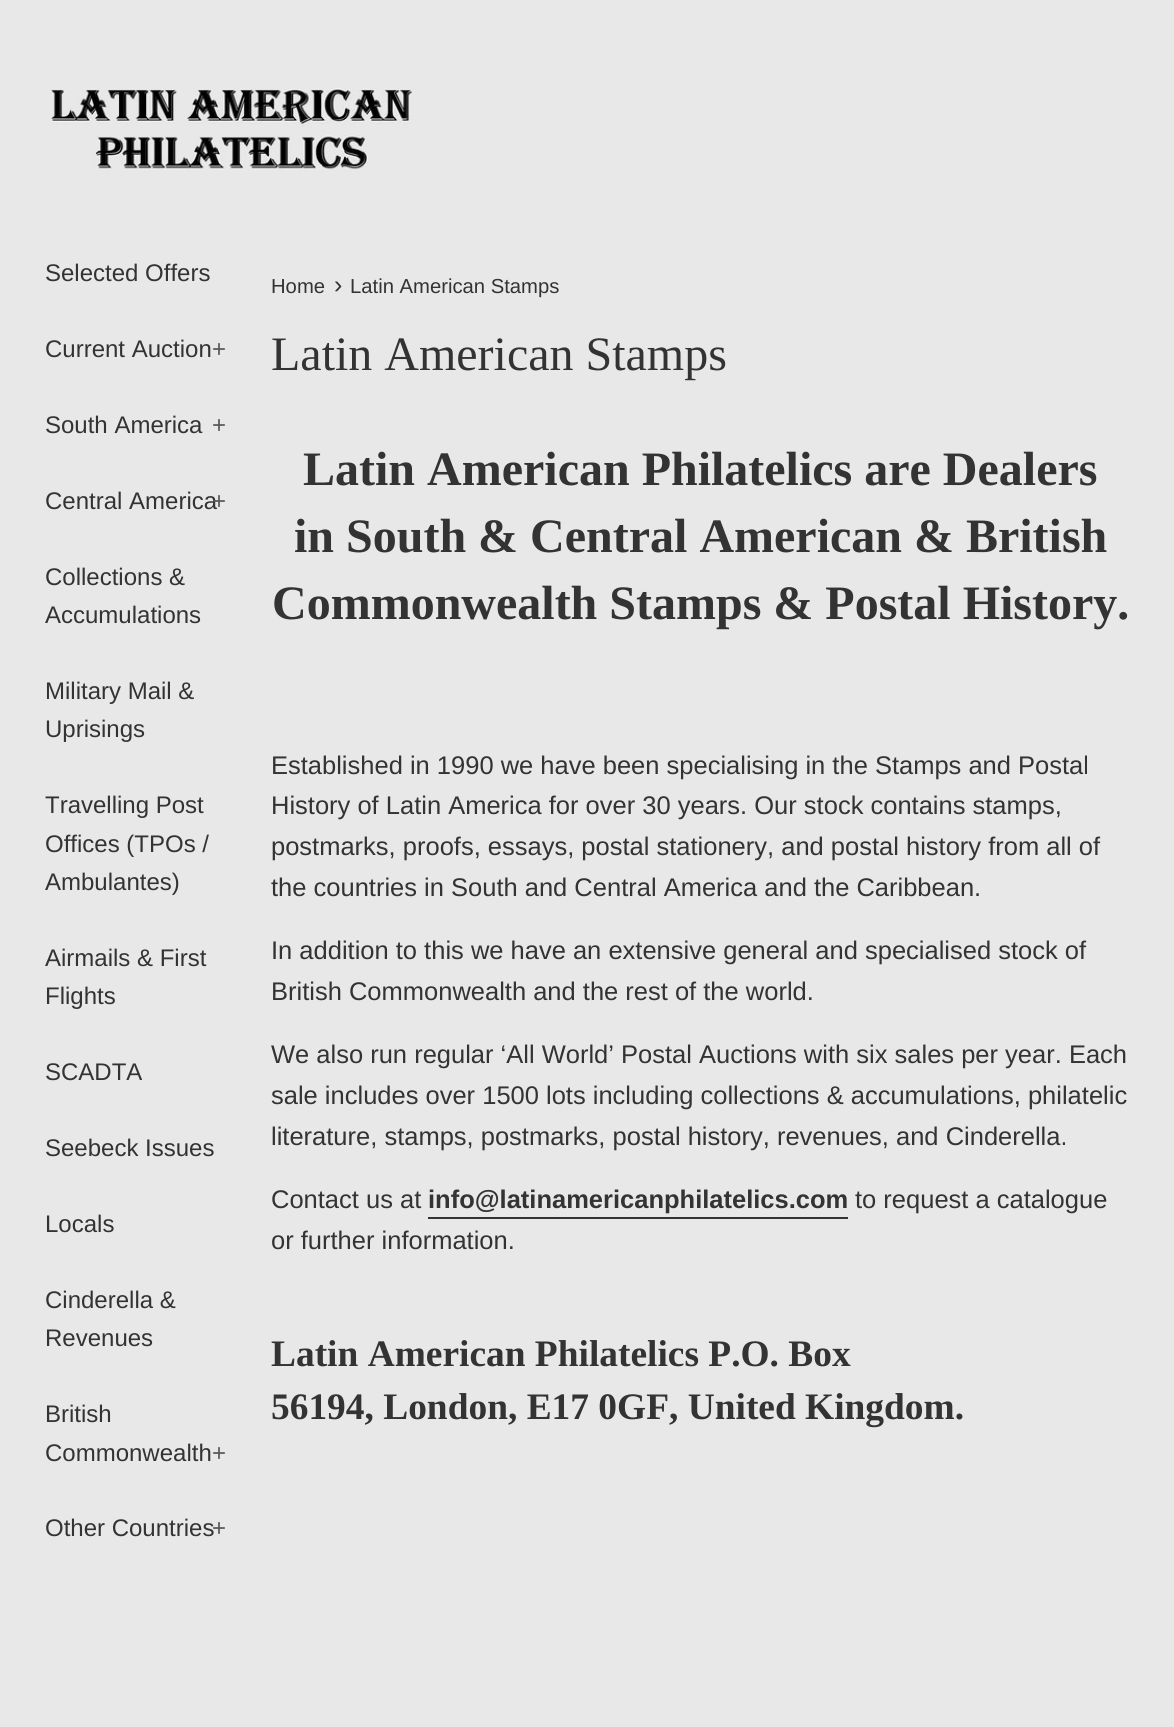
#include <cairo.h>
#include <math.h>
#include <stddef.h>

static cairo_t *ctx;

static void use_color(int r, int g, int b) {
    cairo_set_source_rgb(ctx, r / 255.0, g / 255.0, b / 255.0);
}

static void picture(const char *path, double x, double y, double w, double h) {
    cairo_surface_t *image = cairo_image_surface_create_from_png(path);
    cairo_save(ctx);
    cairo_set_source_surface(ctx, image, x, y);
    cairo_rectangle(ctx, x, y, w, h);
    cairo_fill(ctx);
    cairo_restore(ctx);
    cairo_surface_destroy(image);
}

int main(void) {
    cairo_surface_t *surface = cairo_image_surface_create(CAIRO_FORMAT_RGB24, 1174, 1727);
    ctx = cairo_create(surface);
    cairo_font_options_t *options = cairo_font_options_create();
    cairo_font_options_set_hint_metrics(options, CAIRO_HINT_METRICS_OFF);
    cairo_font_options_set_hint_style(options, CAIRO_HINT_STYLE_NONE);
    cairo_set_font_options(ctx, options);
    cairo_set_miter_limit(ctx, 4);
    use_color(232, 232, 232);
    cairo_paint(ctx);
    picture("img1.png", 50, 88, 362, 83);
    cairo_select_font_face(ctx, "Liberation Sans", CAIRO_FONT_SLANT_NORMAL, CAIRO_FONT_WEIGHT_NORMAL);
    cairo_set_font_size(ctx, 24);
    use_color(51, 51, 51);
    cairo_move_to(ctx, 45, 281);
    cairo_show_text(ctx, "Selected Offers");
    cairo_move_to(ctx, 45, 357);
    cairo_show_text(ctx, "Current Auction");
    use_color(87, 87, 87);
    cairo_move_to(ctx, 212, 357);
    cairo_show_text(ctx, "+");
    use_color(51, 51, 51);
    cairo_move_to(ctx, 45, 433);
    cairo_show_text(ctx, "South America");
    use_color(87, 87, 87);
    cairo_move_to(ctx, 212, 433);
    cairo_show_text(ctx, "+");
    use_color(51, 51, 51);
    cairo_move_to(ctx, 45, 509);
    cairo_show_text(ctx, "Central America");
    use_color(87, 87, 87);
    cairo_move_to(ctx, 212, 509);
    cairo_show_text(ctx, "+");
    use_color(51, 51, 51);
    cairo_move_to(ctx, 45, 585);
    cairo_show_text(ctx, "Collections &");
    cairo_move_to(ctx, 45, 623);
    cairo_show_text(ctx, "Accumulations");
    cairo_move_to(ctx, 45, 699);
    cairo_show_text(ctx, "Military Mail &");
    cairo_move_to(ctx, 45, 737);
    cairo_show_text(ctx, "Uprisings");
    cairo_move_to(ctx, 45, 813);
    cairo_show_text(ctx, "Travelling Post");
    cairo_move_to(ctx, 45, 852);
    cairo_show_text(ctx, "Offices (TPOs /");
    cairo_move_to(ctx, 45, 890);
    cairo_show_text(ctx, "Ambulantes)");
    cairo_move_to(ctx, 45, 966);
    cairo_show_text(ctx, "Airmails & First");
    cairo_move_to(ctx, 45, 1004);
    cairo_show_text(ctx, "Flights");
    cairo_move_to(ctx, 45, 1080);
    cairo_show_text(ctx, "SCADTA");
    cairo_move_to(ctx, 45, 1156);
    cairo_show_text(ctx, "Seebeck Issues");
    cairo_move_to(ctx, 45, 1232);
    cairo_show_text(ctx, "Locals");
    cairo_move_to(ctx, 45, 1308);
    cairo_show_text(ctx, "Cinderella &");
    cairo_move_to(ctx, 45, 1346);
    cairo_show_text(ctx, "Revenues");
    cairo_move_to(ctx, 45, 1422);
    cairo_show_text(ctx, "British");
    cairo_move_to(ctx, 45, 1461);
    cairo_show_text(ctx, "Commonwealth");
    use_color(87, 87, 87);
    cairo_move_to(ctx, 212, 1461);
    cairo_show_text(ctx, "+");
    use_color(51, 51, 51);
    cairo_move_to(ctx, 45, 1536);
    cairo_show_text(ctx, "Other Countries");
    use_color(87, 87, 87);
    cairo_move_to(ctx, 212, 1536);
    cairo_show_text(ctx, "+");
    cairo_set_font_size(ctx, 20.25);
    use_color(51, 51, 51);
    cairo_move_to(ctx, 271, 293);
    cairo_show_text(ctx, "Home");
    cairo_set_font_size(ctx, 25);
    cairo_move_to(ctx, 334, 293);
    cairo_show_text(ctx, "›");
    cairo_set_font_size(ctx, 20.25);
    cairo_move_to(ctx, 350, 293);
    cairo_show_text(ctx, "Latin American Stamps");
    cairo_select_font_face(ctx, "Liberation Serif", CAIRO_FONT_SLANT_NORMAL, CAIRO_FONT_WEIGHT_NORMAL);
    cairo_set_font_size(ctx, 48);
    cairo_move_to(ctx, 271, 370);
    cairo_show_text(ctx, "Latin American Stamps");
    cairo_select_font_face(ctx, "Liberation Serif", CAIRO_FONT_SLANT_NORMAL, CAIRO_FONT_WEIGHT_BOLD);
    cairo_move_to(ctx, 303, 485);
    cairo_show_text(ctx, "Latin American Philatelics are Dealers");
    cairo_move_to(ctx, 294, 552);
    cairo_show_text(ctx, "in South & Central American & British");
    cairo_move_to(ctx, 272, 619);
    cairo_show_text(ctx, "Commonwealth Stamps & Postal History.");
    cairo_select_font_face(ctx, "Liberation Sans", CAIRO_FONT_SLANT_NORMAL, CAIRO_FONT_WEIGHT_NORMAL);
    cairo_set_font_size(ctx, 25.5);
    cairo_move_to(ctx, 271, 774);
    cairo_show_text(ctx, "Established in 1990 we have been specialising in the Stamps and Postal");
    cairo_move_to(ctx, 271, 814);
    cairo_show_text(ctx, "History of Latin America for over 30 years. Our stock contains stamps,");
    cairo_move_to(ctx, 271, 855);
    cairo_show_text(ctx, "postmarks, proofs, essays, postal stationery, and postal history from all of");
    cairo_move_to(ctx, 271, 896);
    cairo_show_text(ctx, "the countries in South and Central America and the Caribbean.");
    cairo_move_to(ctx, 271, 959);
    cairo_show_text(ctx, "In addition to this we have an extensive general and specialised stock of");
    cairo_move_to(ctx, 271, 1000);
    cairo_show_text(ctx, "British Commonwealth and the rest of the world.");
    cairo_move_to(ctx, 271, 1063);
    cairo_show_text(ctx, "We also run regular ‘All World’ Postal Auctions with six sales per year. Each");
    cairo_move_to(ctx, 271, 1104);
    cairo_show_text(ctx, "sale includes over 1500 lots including collections & accumulations, philatelic");
    cairo_move_to(ctx, 271, 1145);
    cairo_show_text(ctx, "literature, stamps, postmarks, postal history, revenues, and Cinderella.");
    cairo_move_to(ctx, 271, 1208);
    cairo_show_text(ctx, "Contact us at");
    cairo_select_font_face(ctx, "Liberation Sans", CAIRO_FONT_SLANT_NORMAL, CAIRO_FONT_WEIGHT_BOLD);
    cairo_move_to(ctx, 428, 1208);
    cairo_show_text(ctx, "info@latinamericanphilatelics.com");
    cairo_rectangle(ctx, 428, 1217, 420, 2);
    cairo_fill(ctx);
    cairo_select_font_face(ctx, "Liberation Sans", CAIRO_FONT_SLANT_NORMAL, CAIRO_FONT_WEIGHT_NORMAL);
    cairo_move_to(ctx, 855, 1208);
    cairo_show_text(ctx, "to request a catalogue");
    cairo_move_to(ctx, 271, 1249);
    cairo_show_text(ctx, "or further information.");
    cairo_select_font_face(ctx, "Liberation Serif", CAIRO_FONT_SLANT_NORMAL, CAIRO_FONT_WEIGHT_BOLD);
    cairo_set_font_size(ctx, 37.4);
    cairo_move_to(ctx, 271, 1366);
    cairo_show_text(ctx, "Latin American Philatelics P.O. Box");
    cairo_move_to(ctx, 271, 1419);
    cairo_show_text(ctx, "56194, London, E17 0GF, United Kingdom.");
    cairo_surface_write_to_png(surface, "result.png");
    cairo_font_options_destroy(options);
    cairo_destroy(ctx);
    cairo_surface_destroy(surface);
    return 0;
}
